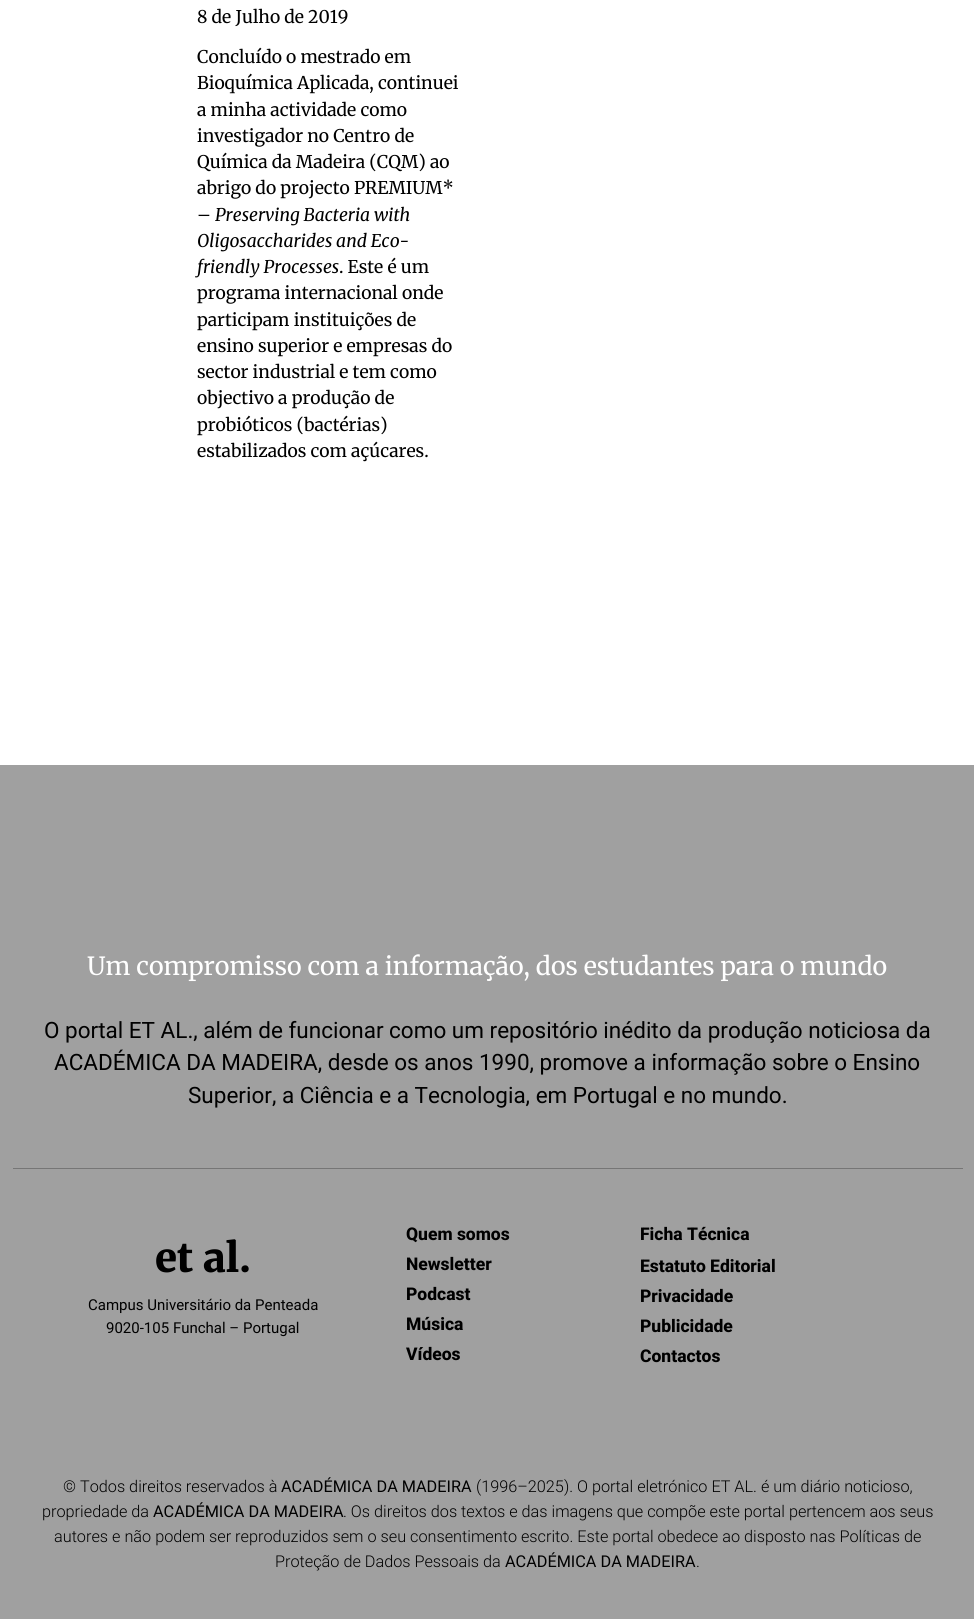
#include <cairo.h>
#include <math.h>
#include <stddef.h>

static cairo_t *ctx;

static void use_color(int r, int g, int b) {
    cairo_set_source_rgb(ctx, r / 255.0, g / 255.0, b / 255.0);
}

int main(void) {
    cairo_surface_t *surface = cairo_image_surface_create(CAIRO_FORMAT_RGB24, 974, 1619);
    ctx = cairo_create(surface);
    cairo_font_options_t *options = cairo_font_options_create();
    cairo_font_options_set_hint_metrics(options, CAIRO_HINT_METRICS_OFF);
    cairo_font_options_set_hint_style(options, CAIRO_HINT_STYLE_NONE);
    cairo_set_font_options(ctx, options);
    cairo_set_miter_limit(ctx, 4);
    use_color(255, 255, 255);
    cairo_paint(ctx);
    cairo_select_font_face(ctx, "Merriweather", CAIRO_FONT_SLANT_NORMAL, CAIRO_FONT_WEIGHT_NORMAL);
    cairo_set_font_size(ctx, 17.5);
    use_color(0, 0, 0);
    cairo_move_to(ctx, 197, 23);
    cairo_show_text(ctx, "8 de Julho de 2019");
    cairo_move_to(ctx, 197, 63);
    cairo_show_text(ctx, "Concluído o mestrado em");
    cairo_move_to(ctx, 197, 89);
    cairo_show_text(ctx, "Bioquímica Aplicada, continuei");
    cairo_move_to(ctx, 197, 116);
    cairo_show_text(ctx, "a minha actividade como");
    cairo_move_to(ctx, 197, 142);
    cairo_show_text(ctx, "investigador no Centro de");
    cairo_move_to(ctx, 197, 168);
    cairo_show_text(ctx, "Química da Madeira (CQM) ao");
    cairo_move_to(ctx, 197, 194);
    cairo_show_text(ctx, "abrigo do projecto PREMIUM*");
    cairo_move_to(ctx, 197, 221);
    cairo_show_text(ctx, "–");
    cairo_select_font_face(ctx, "Merriweather", CAIRO_FONT_SLANT_ITALIC, CAIRO_FONT_WEIGHT_NORMAL);
    cairo_move_to(ctx, 215, 221);
    cairo_show_text(ctx, "Preserving Bacteria with");
    cairo_move_to(ctx, 197, 247);
    cairo_show_text(ctx, "Oligosaccharides and Eco-");
    cairo_move_to(ctx, 197, 273);
    cairo_show_text(ctx, "friendly Processes");
    cairo_select_font_face(ctx, "Merriweather", CAIRO_FONT_SLANT_NORMAL, CAIRO_FONT_WEIGHT_NORMAL);
    cairo_move_to(ctx, 339, 273);
    cairo_show_text(ctx, ". Este é um");
    cairo_move_to(ctx, 197, 299);
    cairo_show_text(ctx, "programa internacional onde");
    cairo_move_to(ctx, 197, 326);
    cairo_show_text(ctx, "participam instituições de");
    cairo_move_to(ctx, 197, 352);
    cairo_show_text(ctx, "ensino superior e empresas do");
    cairo_move_to(ctx, 197, 378);
    cairo_show_text(ctx, "sector industrial e tem como");
    cairo_move_to(ctx, 197, 404);
    cairo_show_text(ctx, "objectivo a produção de");
    cairo_move_to(ctx, 197, 431);
    cairo_show_text(ctx, "probióticos (bactérias)");
    cairo_move_to(ctx, 197, 457);
    cairo_show_text(ctx, "estabilizados com açúcares.");
    use_color(160, 160, 160);
    cairo_rectangle(ctx, 0, 765, 974, 854);
    cairo_fill(ctx);
    cairo_set_font_size(ctx, 25);
    use_color(255, 255, 255);
    cairo_move_to(ctx, 87, 975);
    cairo_show_text(ctx, "Um compromisso com a informação, dos estudantes para o mundo");
    cairo_select_font_face(ctx, "Roboto", CAIRO_FONT_SLANT_NORMAL, CAIRO_FONT_WEIGHT_NORMAL);
    cairo_set_font_size(ctx, 22.5);
    use_color(0, 0, 0);
    cairo_move_to(ctx, 44, 1038);
    cairo_show_text(ctx, "O portal ET AL., além de funcionar como um repositório inédito da produção noticiosa da");
    cairo_move_to(ctx, 54, 1070);
    cairo_show_text(ctx, "ACADÉMICA DA MADEIRA, desde os anos 1990, promove a informação sobre o Ensino");
    cairo_move_to(ctx, 188, 1103);
    cairo_show_text(ctx, "Superior, a Ciência e a Tecnologia, em Portugal e no mundo.");
    use_color(118, 118, 118);
    cairo_rectangle(ctx, 13, 1168, 950, 1);
    cairo_fill(ctx);
    cairo_select_font_face(ctx, "Merriweather Black", CAIRO_FONT_SLANT_NORMAL, CAIRO_FONT_WEIGHT_NORMAL);
    cairo_set_font_size(ctx, 40);
    use_color(0, 0, 0);
    cairo_move_to(ctx, 155, 1272);
    cairo_show_text(ctx, "et al.");
    cairo_select_font_face(ctx, "Roboto", CAIRO_FONT_SLANT_NORMAL, CAIRO_FONT_WEIGHT_NORMAL);
    cairo_set_font_size(ctx, 15);
    cairo_move_to(ctx, 88, 1310);
    cairo_show_text(ctx, "Campus Universitário da Penteada");
    cairo_move_to(ctx, 106, 1333);
    cairo_show_text(ctx, "9020-105 Funchal – Portugal");
    cairo_select_font_face(ctx, "Roboto ExtraBold", CAIRO_FONT_SLANT_NORMAL, CAIRO_FONT_WEIGHT_NORMAL);
    cairo_set_font_size(ctx, 17.5);
    cairo_move_to(ctx, 406, 1240);
    cairo_show_text(ctx, "Quem somos");
    cairo_move_to(ctx, 406, 1270);
    cairo_show_text(ctx, "Newsletter");
    cairo_move_to(ctx, 406, 1300);
    cairo_show_text(ctx, "Podcast");
    cairo_move_to(ctx, 406, 1330);
    cairo_show_text(ctx, "Música");
    cairo_move_to(ctx, 406, 1360);
    cairo_show_text(ctx, "Vídeos");
    cairo_move_to(ctx, 640, 1240);
    cairo_show_text(ctx, "Ficha Técnica");
    cairo_move_to(ctx, 640, 1272);
    cairo_show_text(ctx, "Estatuto Editorial");
    cairo_move_to(ctx, 640, 1302);
    cairo_show_text(ctx, "Privacidade");
    cairo_move_to(ctx, 640, 1332);
    cairo_show_text(ctx, "Publicidade");
    cairo_move_to(ctx, 640, 1362);
    cairo_show_text(ctx, "Contactos");
    cairo_select_font_face(ctx, "Roboto Light", CAIRO_FONT_SLANT_NORMAL, CAIRO_FONT_WEIGHT_NORMAL);
    cairo_set_font_size(ctx, 16.25);
    cairo_move_to(ctx, 63, 1492);
    cairo_show_text(ctx, "© Todos direitos reservados à");
    cairo_select_font_face(ctx, "Roboto", CAIRO_FONT_SLANT_NORMAL, CAIRO_FONT_WEIGHT_NORMAL);
    cairo_move_to(ctx, 281, 1492);
    cairo_show_text(ctx, "ACADÉMICA DA MADEIRA");
    cairo_select_font_face(ctx, "Roboto Light", CAIRO_FONT_SLANT_NORMAL, CAIRO_FONT_WEIGHT_NORMAL);
    cairo_move_to(ctx, 476, 1492);
    cairo_show_text(ctx, "(1996–2025). O portal eletrónico ET AL. é um diário noticioso,");
    cairo_move_to(ctx, 42, 1517);
    cairo_show_text(ctx, "propriedade da");
    cairo_select_font_face(ctx, "Roboto", CAIRO_FONT_SLANT_NORMAL, CAIRO_FONT_WEIGHT_NORMAL);
    cairo_move_to(ctx, 153, 1517);
    cairo_show_text(ctx, "ACADÉMICA DA MADEIRA");
    cairo_select_font_face(ctx, "Roboto Light", CAIRO_FONT_SLANT_NORMAL, CAIRO_FONT_WEIGHT_NORMAL);
    cairo_move_to(ctx, 343, 1517);
    cairo_show_text(ctx, ". Os direitos dos textos e das imagens que compõe este portal pertencem aos seus");
    cairo_move_to(ctx, 54, 1542);
    cairo_show_text(ctx, "autores e não podem ser reproduzidos sem o seu consentimento escrito. Este portal obedece ao disposto nas Políticas de");
    cairo_move_to(ctx, 275, 1567);
    cairo_show_text(ctx, "Proteção de Dados Pessoais da");
    cairo_select_font_face(ctx, "Roboto", CAIRO_FONT_SLANT_NORMAL, CAIRO_FONT_WEIGHT_NORMAL);
    cairo_move_to(ctx, 505, 1567);
    cairo_show_text(ctx, "ACADÉMICA DA MADEIRA");
    cairo_select_font_face(ctx, "Roboto Light", CAIRO_FONT_SLANT_NORMAL, CAIRO_FONT_WEIGHT_NORMAL);
    cairo_move_to(ctx, 696, 1567);
    cairo_show_text(ctx, ".");
    cairo_surface_write_to_png(surface, "result.png");
    cairo_font_options_destroy(options);
    cairo_destroy(ctx);
    cairo_surface_destroy(surface);
    return 0;
}
